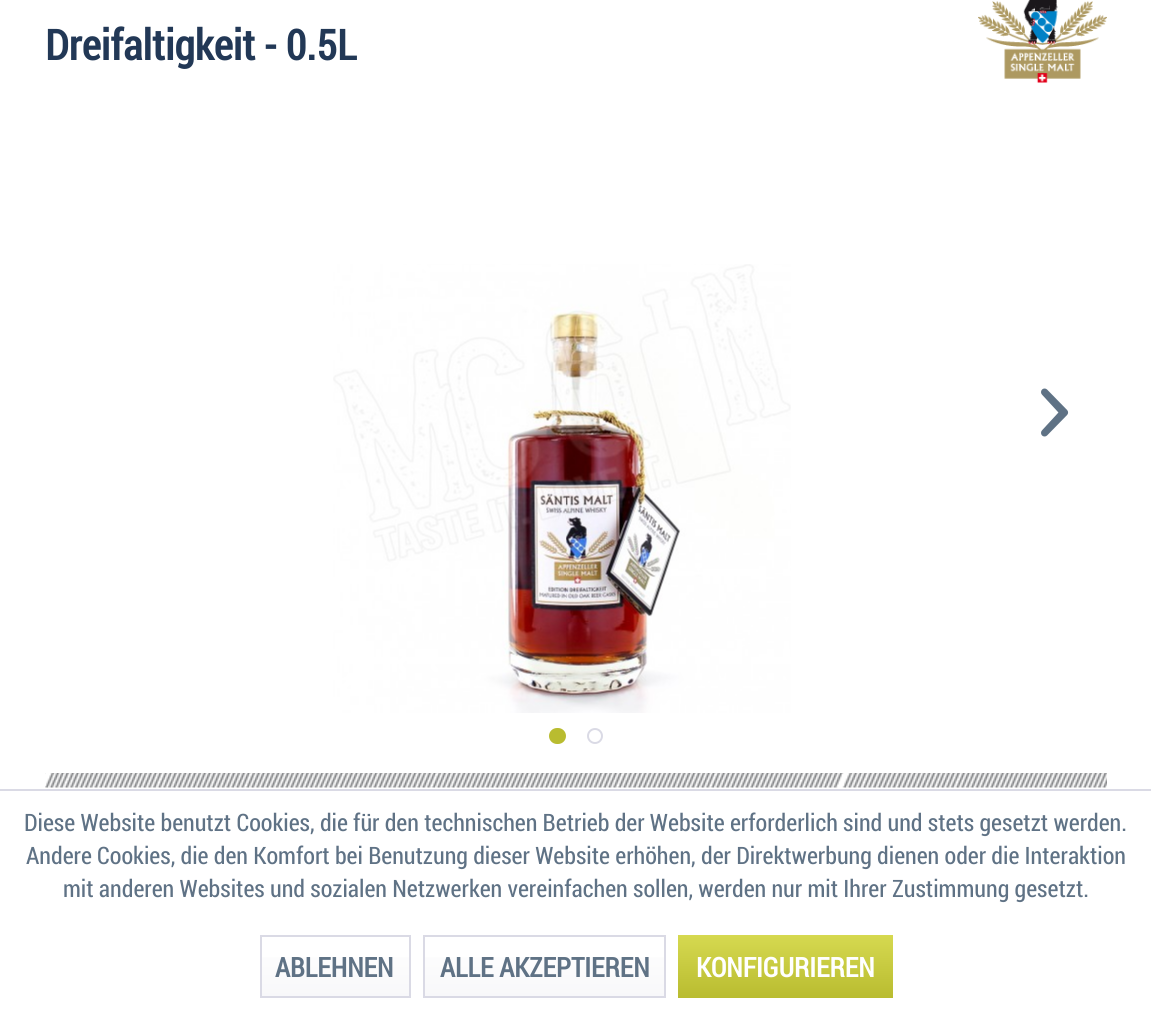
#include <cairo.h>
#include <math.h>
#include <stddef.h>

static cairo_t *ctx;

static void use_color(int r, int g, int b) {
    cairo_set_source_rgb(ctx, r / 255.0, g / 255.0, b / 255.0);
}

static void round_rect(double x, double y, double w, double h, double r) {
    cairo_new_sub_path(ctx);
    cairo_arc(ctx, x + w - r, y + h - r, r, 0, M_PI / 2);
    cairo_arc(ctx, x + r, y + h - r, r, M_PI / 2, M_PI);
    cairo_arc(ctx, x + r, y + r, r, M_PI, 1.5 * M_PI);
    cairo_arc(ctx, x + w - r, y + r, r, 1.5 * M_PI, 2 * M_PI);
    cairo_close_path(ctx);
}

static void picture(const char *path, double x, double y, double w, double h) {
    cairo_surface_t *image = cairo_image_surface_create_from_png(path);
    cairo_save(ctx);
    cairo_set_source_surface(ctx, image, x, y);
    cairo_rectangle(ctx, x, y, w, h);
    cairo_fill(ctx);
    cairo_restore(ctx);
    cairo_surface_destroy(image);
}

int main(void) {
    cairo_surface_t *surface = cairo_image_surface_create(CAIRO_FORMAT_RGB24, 1151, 1012);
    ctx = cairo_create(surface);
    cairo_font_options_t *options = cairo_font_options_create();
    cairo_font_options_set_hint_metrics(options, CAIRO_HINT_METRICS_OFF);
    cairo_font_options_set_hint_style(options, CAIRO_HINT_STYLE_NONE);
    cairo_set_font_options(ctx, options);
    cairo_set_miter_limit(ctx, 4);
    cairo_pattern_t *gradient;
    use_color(255, 255, 255);
    cairo_paint(ctx);
    cairo_select_font_face(ctx, "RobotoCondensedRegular", CAIRO_FONT_SLANT_NORMAL, CAIRO_FONT_WEIGHT_BOLD);
    cairo_set_font_size(ctx, 42);
    use_color(34, 56, 86);
    cairo_move_to(ctx, 45, 60);
    cairo_show_text(ctx, "Dreifaltigkeit - 0.5L");
    picture("img1.png", 978, 0, 129, 83);
    picture("img2.png", 333, 264, 458, 449);
    picture("img3.png", 1041, 388, 28, 49);
    use_color(185, 188, 48);
    round_rect(550, 729, 15, 14, 7);
    cairo_fill_preserve(ctx);
    cairo_stroke(ctx);
    cairo_arc(ctx, 595, 736, 7, 0, 2 * M_PI);
    use_color(218, 218, 229);
    cairo_stroke(ctx);
    picture("img4.png", 45, 773, 1062, 15);
    cairo_rectangle(ctx, 0, 789, 1151, 2);
    cairo_fill(ctx);
    cairo_select_font_face(ctx, "RobotoCondensedRegular", CAIRO_FONT_SLANT_NORMAL, CAIRO_FONT_WEIGHT_NORMAL);
    cairo_set_font_size(ctx, 24);
    use_color(95, 114, 133);
    cairo_move_to(ctx, 24, 831);
    cairo_show_text(ctx, "Diese Website benutzt Cookies, die für den technischen Betrieb der Website erforderlich sind und stets gesetzt werden.");
    cairo_move_to(ctx, 26, 864);
    cairo_show_text(ctx, "Andere Cookies, die den Komfort bei Benutzung dieser Website erhöhen, der Direktwerbung dienen oder die Interaktion");
    cairo_move_to(ctx, 63, 897);
    cairo_show_text(ctx, "mit anderen Websites und sozialen Netzwerken vereinfachen sollen, werden nur mit Ihrer Zustimmung gesetzt.");
    gradient = cairo_pattern_create_linear(335, 936, 335, 996);
    cairo_pattern_add_color_stop_rgba(gradient, 0, 1, 1, 1, 1);
    cairo_pattern_add_color_stop_rgba(gradient, 1, 0.973, 0.973, 0.98, 1);
    cairo_set_source(ctx, gradient);
    cairo_pattern_destroy(gradient);
    cairo_rectangle(ctx, 262, 957, 147, 39);
    cairo_fill(ctx);
    cairo_rectangle(ctx, 261, 936, 149, 61);
    use_color(218, 218, 229);
    cairo_stroke(ctx);
    cairo_select_font_face(ctx, "RobotoCondensedRegular", CAIRO_FONT_SLANT_NORMAL, CAIRO_FONT_WEIGHT_BOLD);
    cairo_set_font_size(ctx, 27);
    use_color(95, 114, 133);
    cairo_move_to(ctx, 275, 977);
    cairo_show_text(ctx, "ABLEHNEN");
    gradient = cairo_pattern_create_linear(545, 936, 545, 996);
    cairo_pattern_add_color_stop_rgba(gradient, 0, 1, 1, 1, 1);
    cairo_pattern_add_color_stop_rgba(gradient, 1, 0.973, 0.973, 0.98, 1);
    cairo_set_source(ctx, gradient);
    cairo_pattern_destroy(gradient);
    cairo_rectangle(ctx, 425, 957, 239, 39);
    cairo_fill(ctx);
    cairo_rectangle(ctx, 424, 936, 241, 61);
    use_color(218, 218, 229);
    cairo_stroke(ctx);
    use_color(95, 114, 133);
    cairo_move_to(ctx, 440, 977);
    cairo_show_text(ctx, "ALLE AKZEPTIEREN");
    gradient = cairo_pattern_create_linear(785, 935, 785, 998);
    cairo_pattern_add_color_stop_rgba(gradient, 0, 0.839, 0.851, 0.314, 1);
    cairo_pattern_add_color_stop_rgba(gradient, 1, 0.725, 0.737, 0.188, 1);
    cairo_set_source(ctx, gradient);
    cairo_pattern_destroy(gradient);
    cairo_rectangle(ctx, 678, 935, 215, 63);
    cairo_fill(ctx);
    use_color(255, 255, 255);
    cairo_move_to(ctx, 696, 977);
    cairo_show_text(ctx, "KONFIGURIEREN");
    cairo_surface_write_to_png(surface, "result.png");
    cairo_font_options_destroy(options);
    cairo_destroy(ctx);
    cairo_surface_destroy(surface);
    return 0;
}
